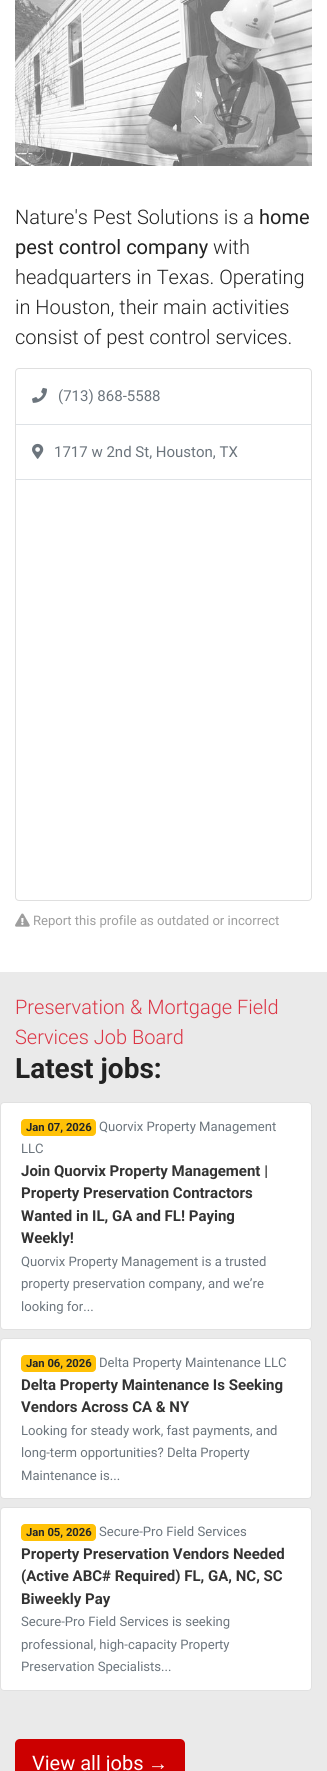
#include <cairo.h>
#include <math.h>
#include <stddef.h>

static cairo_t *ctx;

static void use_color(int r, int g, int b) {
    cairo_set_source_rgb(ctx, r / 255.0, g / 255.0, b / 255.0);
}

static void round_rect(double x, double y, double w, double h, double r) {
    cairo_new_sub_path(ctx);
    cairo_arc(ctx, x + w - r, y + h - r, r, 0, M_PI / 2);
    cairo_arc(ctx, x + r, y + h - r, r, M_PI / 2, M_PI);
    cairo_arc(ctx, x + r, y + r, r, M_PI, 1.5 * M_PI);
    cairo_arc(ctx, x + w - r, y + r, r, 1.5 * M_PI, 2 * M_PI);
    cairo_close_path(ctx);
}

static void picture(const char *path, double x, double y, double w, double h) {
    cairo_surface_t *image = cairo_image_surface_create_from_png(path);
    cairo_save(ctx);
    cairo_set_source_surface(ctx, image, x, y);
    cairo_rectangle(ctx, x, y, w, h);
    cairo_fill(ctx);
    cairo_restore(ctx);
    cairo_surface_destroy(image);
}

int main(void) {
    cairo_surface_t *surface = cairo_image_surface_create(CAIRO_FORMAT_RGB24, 327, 1771);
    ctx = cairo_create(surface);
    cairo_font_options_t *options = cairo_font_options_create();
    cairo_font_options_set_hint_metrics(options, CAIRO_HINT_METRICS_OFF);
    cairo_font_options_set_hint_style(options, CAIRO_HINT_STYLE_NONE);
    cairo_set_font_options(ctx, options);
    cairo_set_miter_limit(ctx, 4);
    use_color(255, 255, 255);
    cairo_paint(ctx);
    picture("img1.png", 15, 0, 297, 166);
    cairo_select_font_face(ctx, "Roboto Light", CAIRO_FONT_SLANT_NORMAL, CAIRO_FONT_WEIGHT_NORMAL);
    cairo_set_font_size(ctx, 20);
    use_color(34, 34, 34);
    cairo_move_to(ctx, 15, 224);
    cairo_show_text(ctx, "Nature's Pest Solutions is a");
    cairo_select_font_face(ctx, "Roboto", CAIRO_FONT_SLANT_NORMAL, CAIRO_FONT_WEIGHT_NORMAL);
    cairo_move_to(ctx, 259, 224);
    cairo_show_text(ctx, "home");
    cairo_move_to(ctx, 15, 254);
    cairo_show_text(ctx, "pest control company");
    cairo_select_font_face(ctx, "Roboto Light", CAIRO_FONT_SLANT_NORMAL, CAIRO_FONT_WEIGHT_NORMAL);
    cairo_move_to(ctx, 213, 254);
    cairo_show_text(ctx, "with");
    cairo_move_to(ctx, 15, 284);
    cairo_show_text(ctx, "headquarters in Texas. Operating");
    cairo_move_to(ctx, 15, 314);
    cairo_show_text(ctx, "in Houston, their main activities");
    cairo_move_to(ctx, 15, 344);
    cairo_show_text(ctx, "consist of pest control services.");
    round_rect(15.5, 368.5, 296, 532, 3.5);
    use_color(223, 223, 223);
    cairo_set_line_width(ctx, 1);
    cairo_stroke(ctx);
    use_color(222, 226, 230);
    cairo_rectangle(ctx, 16, 424, 295, 1);
    cairo_fill(ctx);
    picture("img2.png", 32, 387, 15, 16);
    cairo_select_font_face(ctx, "Roboto", CAIRO_FONT_SLANT_NORMAL, CAIRO_FONT_WEIGHT_NORMAL);
    cairo_set_font_size(ctx, 15);
    use_color(108, 117, 125);
    cairo_move_to(ctx, 58, 401);
    cairo_show_text(ctx, "(713) 868-5588");
    use_color(222, 226, 230);
    cairo_rectangle(ctx, 16, 479, 295, 1);
    cairo_fill(ctx);
    picture("img3.png", 32, 443, 12, 16);
    use_color(108, 117, 125);
    cairo_move_to(ctx, 54, 457);
    cairo_show_text(ctx, "1717 w 2nd St, Houston, TX");
    picture("img4.png", 15, 913, 15, 14);
    cairo_set_font_size(ctx, 13.1);
    use_color(158, 158, 158);
    cairo_move_to(ctx, 33, 925);
    cairo_show_text(ctx, "Report this profile as outdated or incorrect");
    use_color(234, 234, 234);
    cairo_rectangle(ctx, 0, 972, 327, 799);
    cairo_fill(ctx);
    cairo_select_font_face(ctx, "Roboto Light", CAIRO_FONT_SLANT_NORMAL, CAIRO_FONT_WEIGHT_NORMAL);
    cairo_set_font_size(ctx, 20);
    use_color(220, 53, 69);
    cairo_move_to(ctx, 15, 1014);
    cairo_show_text(ctx, "Preservation & Mortgage Field");
    cairo_move_to(ctx, 15, 1044);
    cairo_show_text(ctx, "Services Job Board");
    cairo_select_font_face(ctx, "Roboto", CAIRO_FONT_SLANT_NORMAL, CAIRO_FONT_WEIGHT_BOLD);
    cairo_set_font_size(ctx, 28);
    use_color(34, 34, 34);
    cairo_move_to(ctx, 15, 1078);
    cairo_show_text(ctx, "Latest jobs:");
    use_color(255, 255, 255);
    round_rect(0, 1102, 312, 228, 4);
    cairo_fill(ctx);
    round_rect(0.5, 1102.5, 311, 227, 3.5);
    cairo_set_source_rgba(ctx, 0, 0, 0, 0.12);
    cairo_stroke(ctx);
    use_color(255, 193, 7);
    round_rect(21, 1119, 75, 17, 4);
    cairo_fill(ctx);
    cairo_set_font_size(ctx, 11.25);
    use_color(33, 37, 41);
    cairo_move_to(ctx, 26, 1131);
    cairo_show_text(ctx, "Jan 07, 2026");
    cairo_select_font_face(ctx, "Roboto", CAIRO_FONT_SLANT_NORMAL, CAIRO_FONT_WEIGHT_NORMAL);
    cairo_set_font_size(ctx, 13.1);
    use_color(108, 117, 125);
    cairo_move_to(ctx, 99, 1131);
    cairo_show_text(ctx, "Quorvix Property Management");
    cairo_move_to(ctx, 21, 1153);
    cairo_show_text(ctx, "LLC");
    cairo_select_font_face(ctx, "Roboto", CAIRO_FONT_SLANT_NORMAL, CAIRO_FONT_WEIGHT_BOLD);
    cairo_set_font_size(ctx, 15);
    use_color(51, 51, 51);
    cairo_move_to(ctx, 21, 1176);
    cairo_show_text(ctx, "Join Quorvix Property Management |");
    cairo_move_to(ctx, 21, 1198);
    cairo_show_text(ctx, "Property Preservation Contractors");
    cairo_move_to(ctx, 21, 1221);
    cairo_show_text(ctx, "Wanted in IL, GA and FL! Paying");
    cairo_move_to(ctx, 21, 1243);
    cairo_show_text(ctx, "Weekly!");
    cairo_select_font_face(ctx, "Roboto", CAIRO_FONT_SLANT_NORMAL, CAIRO_FONT_WEIGHT_NORMAL);
    cairo_set_font_size(ctx, 13.1);
    use_color(108, 117, 125);
    cairo_move_to(ctx, 21, 1266);
    cairo_show_text(ctx, "Quorvix Property Management is a trusted");
    cairo_move_to(ctx, 21, 1288);
    cairo_show_text(ctx, "property preservation company, and we’re");
    cairo_move_to(ctx, 21, 1311);
    cairo_show_text(ctx, "looking for...");
    use_color(255, 255, 255);
    round_rect(0, 1338, 312, 161, 4);
    cairo_fill(ctx);
    round_rect(0.5, 1338.5, 311, 160, 3.5);
    cairo_set_source_rgba(ctx, 0, 0, 0, 0.12);
    cairo_stroke(ctx);
    use_color(255, 193, 7);
    round_rect(21, 1355, 75, 17, 4);
    cairo_fill(ctx);
    cairo_select_font_face(ctx, "Roboto", CAIRO_FONT_SLANT_NORMAL, CAIRO_FONT_WEIGHT_BOLD);
    cairo_set_font_size(ctx, 11.25);
    use_color(33, 37, 41);
    cairo_move_to(ctx, 26, 1367);
    cairo_show_text(ctx, "Jan 06, 2026");
    cairo_select_font_face(ctx, "Roboto", CAIRO_FONT_SLANT_NORMAL, CAIRO_FONT_WEIGHT_NORMAL);
    cairo_set_font_size(ctx, 13.1);
    use_color(108, 117, 125);
    cairo_move_to(ctx, 99, 1367);
    cairo_show_text(ctx, "Delta Property Maintenance LLC");
    cairo_select_font_face(ctx, "Roboto", CAIRO_FONT_SLANT_NORMAL, CAIRO_FONT_WEIGHT_BOLD);
    cairo_set_font_size(ctx, 15);
    use_color(51, 51, 51);
    cairo_move_to(ctx, 21, 1390);
    cairo_show_text(ctx, "Delta Property Maintenance Is Seeking");
    cairo_move_to(ctx, 21, 1412);
    cairo_show_text(ctx, "Vendors Across CA & NY");
    cairo_select_font_face(ctx, "Roboto", CAIRO_FONT_SLANT_NORMAL, CAIRO_FONT_WEIGHT_NORMAL);
    cairo_set_font_size(ctx, 13.1);
    use_color(108, 117, 125);
    cairo_move_to(ctx, 21, 1435);
    cairo_show_text(ctx, "Looking for steady work, fast payments, and");
    cairo_move_to(ctx, 21, 1457);
    cairo_show_text(ctx, "long-term opportunities? Delta Property");
    cairo_move_to(ctx, 21, 1480);
    cairo_show_text(ctx, "Maintenance is...");
    use_color(255, 255, 255);
    round_rect(0, 1507, 312, 184, 4);
    cairo_fill(ctx);
    round_rect(0.5, 1507.5, 311, 183, 3.5);
    cairo_set_source_rgba(ctx, 0, 0, 0, 0.12);
    cairo_stroke(ctx);
    use_color(255, 193, 7);
    round_rect(21, 1524, 75, 17, 4);
    cairo_fill(ctx);
    cairo_select_font_face(ctx, "Roboto", CAIRO_FONT_SLANT_NORMAL, CAIRO_FONT_WEIGHT_BOLD);
    cairo_set_font_size(ctx, 11.25);
    use_color(33, 37, 41);
    cairo_move_to(ctx, 26, 1536);
    cairo_show_text(ctx, "Jan 05, 2026");
    cairo_select_font_face(ctx, "Roboto", CAIRO_FONT_SLANT_NORMAL, CAIRO_FONT_WEIGHT_NORMAL);
    cairo_set_font_size(ctx, 13.1);
    use_color(108, 117, 125);
    cairo_move_to(ctx, 99, 1536);
    cairo_show_text(ctx, "Secure-Pro Field Services");
    cairo_select_font_face(ctx, "Roboto", CAIRO_FONT_SLANT_NORMAL, CAIRO_FONT_WEIGHT_BOLD);
    cairo_set_font_size(ctx, 15);
    use_color(51, 51, 51);
    cairo_move_to(ctx, 21, 1559);
    cairo_show_text(ctx, "Property Preservation Vendors Needed");
    cairo_move_to(ctx, 21, 1581);
    cairo_show_text(ctx, "(Active ABC# Required) FL, GA, NC, SC");
    cairo_move_to(ctx, 21, 1604);
    cairo_show_text(ctx, "Biweekly Pay");
    cairo_select_font_face(ctx, "Roboto", CAIRO_FONT_SLANT_NORMAL, CAIRO_FONT_WEIGHT_NORMAL);
    cairo_set_font_size(ctx, 13.1);
    use_color(108, 117, 125);
    cairo_move_to(ctx, 21, 1626);
    cairo_show_text(ctx, "Secure-Pro Field Services is seeking");
    cairo_move_to(ctx, 21, 1649);
    cairo_show_text(ctx, "professional, high-capacity Property");
    cairo_move_to(ctx, 21, 1671);
    cairo_show_text(ctx, "Preservation Specialists...");
    use_color(204, 0, 0);
    round_rect(15, 1739, 170, 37, 5);
    cairo_fill(ctx);
    cairo_set_font_size(ctx, 20);
    use_color(255, 255, 255);
    cairo_move_to(ctx, 32, 1770);
    cairo_show_text(ctx, "View all jobs");
    cairo_select_font_face(ctx, "Liberation Sans", CAIRO_FONT_SLANT_NORMAL, CAIRO_FONT_WEIGHT_NORMAL);
    cairo_move_to(ctx, 148, 1770);
    cairo_show_text(ctx, "→");
    cairo_surface_write_to_png(surface, "result.png");
    cairo_font_options_destroy(options);
    cairo_destroy(ctx);
    cairo_surface_destroy(surface);
    return 0;
}
